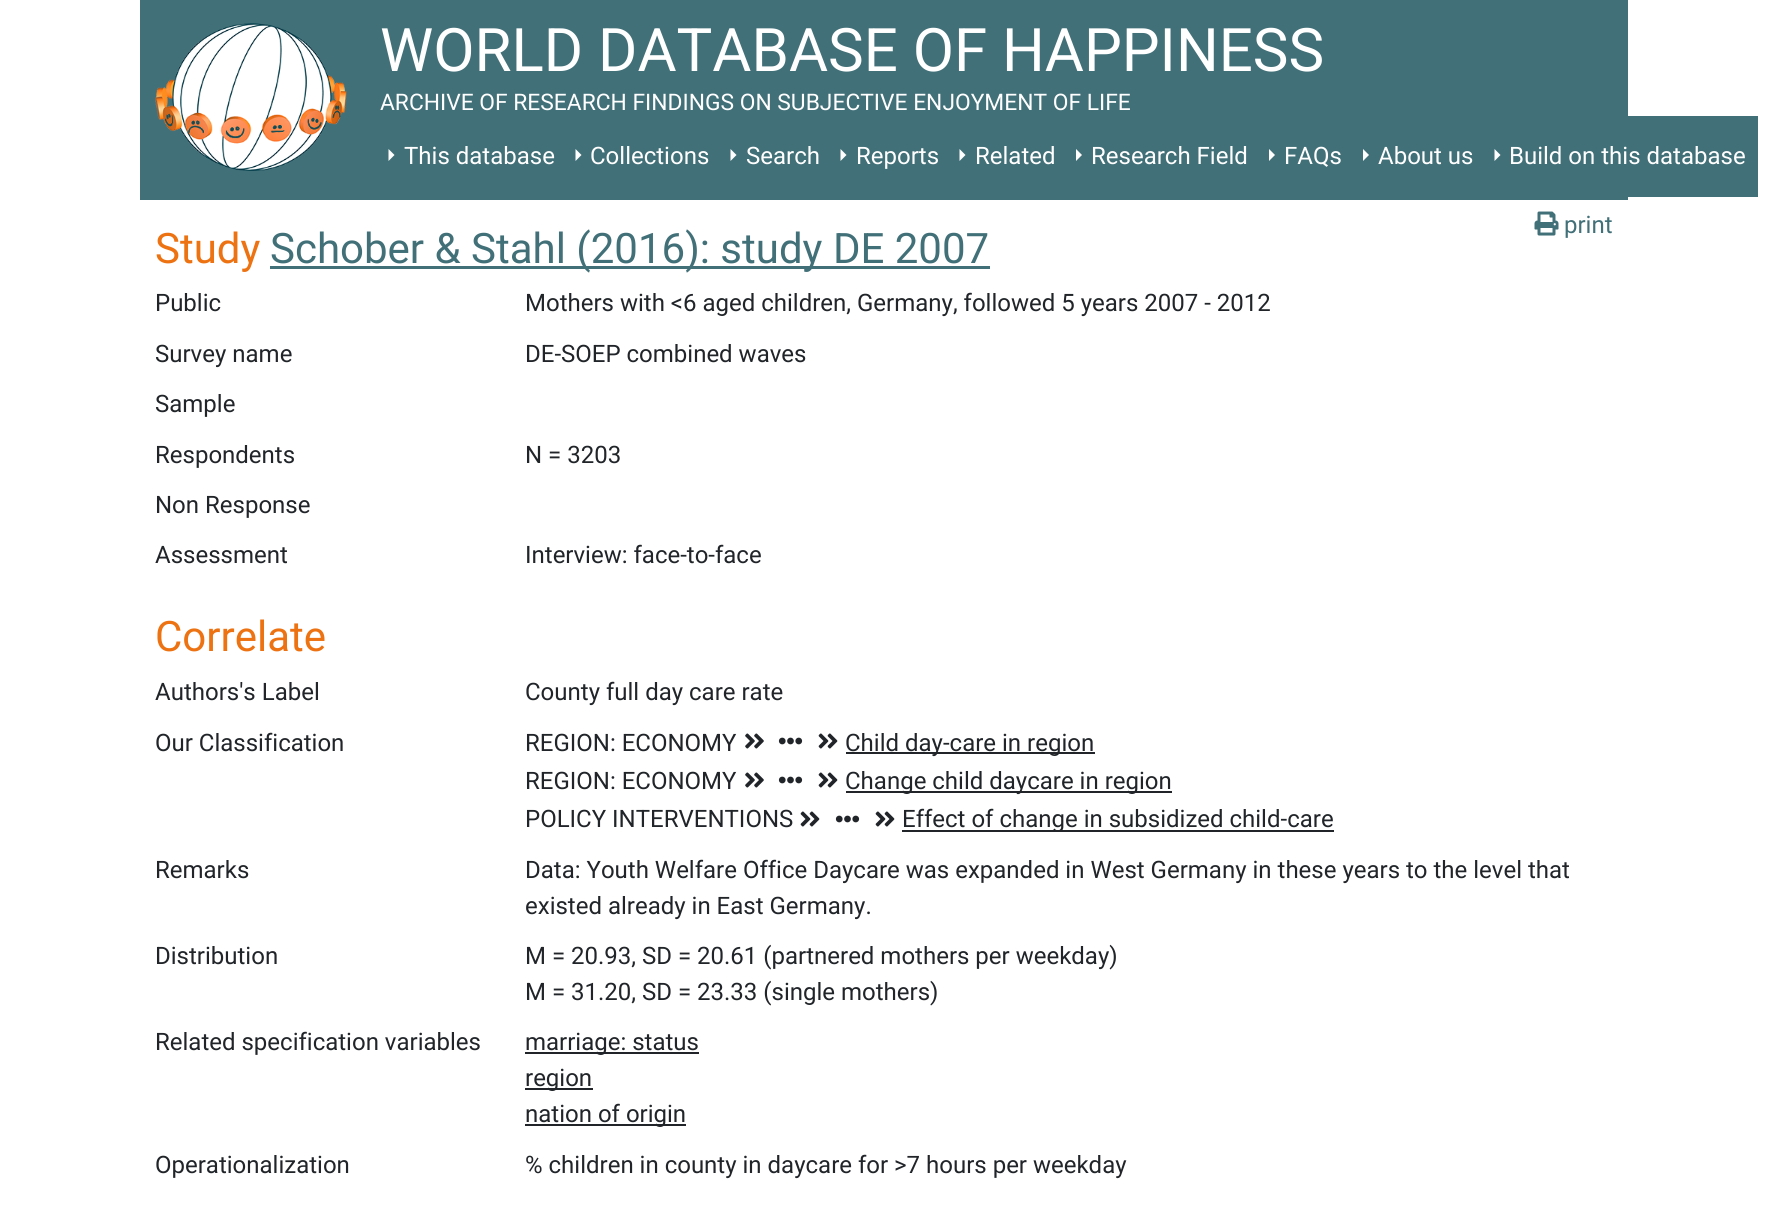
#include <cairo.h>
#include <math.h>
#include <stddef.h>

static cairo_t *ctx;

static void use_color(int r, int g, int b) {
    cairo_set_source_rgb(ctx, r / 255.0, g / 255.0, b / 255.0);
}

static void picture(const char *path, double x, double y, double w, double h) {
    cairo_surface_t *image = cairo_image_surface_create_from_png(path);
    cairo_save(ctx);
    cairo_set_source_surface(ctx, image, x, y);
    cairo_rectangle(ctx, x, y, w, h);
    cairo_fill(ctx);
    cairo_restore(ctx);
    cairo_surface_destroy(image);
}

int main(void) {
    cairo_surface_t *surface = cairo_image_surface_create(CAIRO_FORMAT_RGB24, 1766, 1213);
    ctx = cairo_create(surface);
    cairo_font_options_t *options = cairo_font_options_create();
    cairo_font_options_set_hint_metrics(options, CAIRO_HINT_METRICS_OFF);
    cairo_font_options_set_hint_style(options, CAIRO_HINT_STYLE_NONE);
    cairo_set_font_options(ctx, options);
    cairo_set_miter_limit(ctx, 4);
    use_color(255, 255, 255);
    cairo_paint(ctx);
    use_color(65, 112, 120);
    cairo_rectangle(ctx, 140, 0, 1488, 200);
    cairo_fill(ctx);
    picture("img1.png", 155, 23, 192, 148);
    cairo_select_font_face(ctx, "Roboto", CAIRO_FONT_SLANT_NORMAL, CAIRO_FONT_WEIGHT_NORMAL);
    cairo_set_font_size(ctx, 60);
    use_color(255, 255, 255);
    cairo_move_to(ctx, 380, 71);
    cairo_show_text(ctx, "WORLD DATABASE OF HAPPINESS");
    cairo_set_font_size(ctx, 22.8);
    cairo_move_to(ctx, 380, 110);
    cairo_show_text(ctx, "ARCHIVE OF RESEARCH FINDINGS ON SUBJECTIVE ENJOYMENT OF LIFE");
    use_color(65, 112, 120);
    cairo_rectangle(ctx, 1628, 116, 130, 81);
    cairo_fill(ctx);
    use_color(255, 255, 255);
    cairo_new_path(ctx);
    cairo_move_to(ctx, 388.5, 161);
    cairo_line_to(ctx, 388.5, 149);
    cairo_line_to(ctx, 394.5, 155);
    cairo_close_path(ctx);
    cairo_fill(ctx);
    cairo_set_font_size(ctx, 24);
    cairo_move_to(ctx, 404, 164);
    cairo_show_text(ctx, "This database");
    cairo_new_path(ctx);
    cairo_move_to(ctx, 575.5, 161);
    cairo_line_to(ctx, 575.5, 149);
    cairo_line_to(ctx, 581.5, 155);
    cairo_close_path(ctx);
    cairo_fill(ctx);
    cairo_move_to(ctx, 590, 164);
    cairo_show_text(ctx, "Collections");
    cairo_new_path(ctx);
    cairo_move_to(ctx, 730.5, 161);
    cairo_line_to(ctx, 730.5, 149);
    cairo_line_to(ctx, 736.5, 155);
    cairo_close_path(ctx);
    cairo_fill(ctx);
    cairo_move_to(ctx, 746, 164);
    cairo_show_text(ctx, "Search");
    cairo_new_path(ctx);
    cairo_move_to(ctx, 840.5, 161);
    cairo_line_to(ctx, 840.5, 149);
    cairo_line_to(ctx, 846.5, 155);
    cairo_close_path(ctx);
    cairo_fill(ctx);
    cairo_move_to(ctx, 856, 164);
    cairo_show_text(ctx, "Reports");
    cairo_new_path(ctx);
    cairo_move_to(ctx, 959.5, 161);
    cairo_line_to(ctx, 959.5, 149);
    cairo_line_to(ctx, 965.5, 155);
    cairo_close_path(ctx);
    cairo_fill(ctx);
    cairo_move_to(ctx, 975, 164);
    cairo_show_text(ctx, "Related");
    cairo_new_path(ctx);
    cairo_move_to(ctx, 1076, 161);
    cairo_line_to(ctx, 1076, 149);
    cairo_line_to(ctx, 1082, 155);
    cairo_close_path(ctx);
    cairo_fill(ctx);
    cairo_move_to(ctx, 1091, 164);
    cairo_show_text(ctx, "Research Field");
    cairo_new_path(ctx);
    cairo_move_to(ctx, 1269, 161);
    cairo_line_to(ctx, 1269, 149);
    cairo_line_to(ctx, 1275, 155);
    cairo_close_path(ctx);
    cairo_fill(ctx);
    cairo_move_to(ctx, 1284, 164);
    cairo_show_text(ctx, "FAQs");
    cairo_new_path(ctx);
    cairo_move_to(ctx, 1363, 161);
    cairo_line_to(ctx, 1363, 149);
    cairo_line_to(ctx, 1369, 155);
    cairo_close_path(ctx);
    cairo_fill(ctx);
    cairo_move_to(ctx, 1378, 164);
    cairo_show_text(ctx, "About us");
    cairo_new_path(ctx);
    cairo_move_to(ctx, 1494.5, 161);
    cairo_line_to(ctx, 1494.5, 149);
    cairo_line_to(ctx, 1500.5, 155);
    cairo_close_path(ctx);
    cairo_fill(ctx);
    cairo_move_to(ctx, 1509, 164);
    cairo_show_text(ctx, "Build on this database");
    picture("img2.png", 1534, 211, 25, 25);
    use_color(65, 112, 120);
    cairo_move_to(ctx, 1564, 233);
    cairo_show_text(ctx, "print");
    cairo_set_font_size(ctx, 42);
    use_color(237, 114, 18);
    cairo_move_to(ctx, 155, 263);
    cairo_show_text(ctx, "Study");
    use_color(65, 112, 120);
    cairo_rectangle(ctx, 270, 266, 720, 3);
    cairo_fill(ctx);
    cairo_move_to(ctx, 270, 263);
    cairo_show_text(ctx, "Schober & Stahl (2016): study DE 2007");
    cairo_set_font_size(ctx, 24);
    use_color(33, 37, 41);
    cairo_move_to(ctx, 155, 311);
    cairo_show_text(ctx, "Public");
    cairo_move_to(ctx, 525, 311);
    cairo_show_text(ctx, "Mothers with <6 aged children, Germany, followed 5 years 2007 - 2012");
    cairo_move_to(ctx, 155, 362);
    cairo_show_text(ctx, "Survey name");
    cairo_move_to(ctx, 525, 362);
    cairo_show_text(ctx, "DE-SOEP combined waves");
    cairo_move_to(ctx, 155, 412);
    cairo_show_text(ctx, "Sample");
    cairo_move_to(ctx, 155, 463);
    cairo_show_text(ctx, "Respondents");
    cairo_move_to(ctx, 525, 463);
    cairo_show_text(ctx, "N = 3203");
    cairo_move_to(ctx, 155, 513);
    cairo_show_text(ctx, "Non Response");
    cairo_move_to(ctx, 155, 563);
    cairo_show_text(ctx, "Assessment");
    cairo_move_to(ctx, 525, 563);
    cairo_show_text(ctx, "Interview: face-to-face");
    cairo_set_font_size(ctx, 42);
    use_color(237, 114, 18);
    cairo_move_to(ctx, 155, 651);
    cairo_show_text(ctx, "Correlate");
    cairo_set_font_size(ctx, 24);
    use_color(33, 37, 41);
    cairo_move_to(ctx, 155, 700);
    cairo_show_text(ctx, "Authors's Label");
    cairo_move_to(ctx, 525, 700);
    cairo_show_text(ctx, "County full day care rate");
    cairo_move_to(ctx, 155, 751);
    cairo_show_text(ctx, "Our Classification");
    cairo_move_to(ctx, 525, 751);
    cairo_show_text(ctx, "REGION: ECONOMY");
    picture("img3.png", 745, 733, 19, 16);
    picture("img4.png", 778, 737, 25, 8);
    picture("img5.png", 818, 733, 20, 16);
    cairo_rectangle(ctx, 846, 752, 249, 2);
    cairo_fill(ctx);
    cairo_move_to(ctx, 845, 751);
    cairo_show_text(ctx, "Child day-care in region");
    cairo_move_to(ctx, 525, 789);
    cairo_show_text(ctx, "REGION: ECONOMY");
    picture("img3.png", 745, 772, 19, 16);
    picture("img4.png", 778, 776, 25, 8);
    picture("img5.png", 818, 772, 20, 16);
    cairo_rectangle(ctx, 846, 791, 326, 2);
    cairo_fill(ctx);
    cairo_move_to(ctx, 845, 789);
    cairo_show_text(ctx, "Change child daycare in region");
    cairo_move_to(ctx, 525, 827);
    cairo_show_text(ctx, "POLICY INTERVENTIONS");
    picture("img5.png", 800, 811, 20, 16);
    picture("img4.png", 835, 815, 25, 8);
    picture("img5.png", 875, 811, 20, 16);
    cairo_rectangle(ctx, 902, 830, 432, 2);
    cairo_fill(ctx);
    cairo_move_to(ctx, 902, 827);
    cairo_show_text(ctx, "Effect of change in subsidized child-care");
    cairo_move_to(ctx, 155, 878);
    cairo_show_text(ctx, "Remarks");
    cairo_move_to(ctx, 525, 878);
    cairo_show_text(ctx, "Data: Youth Welfare Office Daycare was expanded in West Germany in these years to the level that");
    cairo_move_to(ctx, 525, 914);
    cairo_show_text(ctx, "existed already in East Germany.");
    cairo_move_to(ctx, 155, 964);
    cairo_show_text(ctx, "Distribution");
    cairo_move_to(ctx, 525, 964);
    cairo_show_text(ctx, "M = 20.93, SD = 20.61 (partnered mothers per weekday)");
    cairo_move_to(ctx, 525, 1000);
    cairo_show_text(ctx, "M = 31.20, SD = 23.33 (single mothers)");
    cairo_move_to(ctx, 155, 1050);
    cairo_show_text(ctx, "Related specification variables");
    cairo_rectangle(ctx, 525, 1052, 174, 2);
    cairo_fill(ctx);
    cairo_move_to(ctx, 525, 1050);
    cairo_show_text(ctx, "marriage: status");
    cairo_rectangle(ctx, 525, 1088, 68, 2);
    cairo_fill(ctx);
    cairo_move_to(ctx, 525, 1086);
    cairo_show_text(ctx, "region");
    cairo_rectangle(ctx, 525, 1124, 161, 2);
    cairo_fill(ctx);
    cairo_move_to(ctx, 525, 1122);
    cairo_show_text(ctx, "nation of origin");
    cairo_move_to(ctx, 155, 1173);
    cairo_show_text(ctx, "Operationalization");
    cairo_move_to(ctx, 525, 1173);
    cairo_show_text(ctx, "% children in county in daycare for >7 hours per weekday");
    cairo_surface_write_to_png(surface, "result.png");
    cairo_font_options_destroy(options);
    cairo_destroy(ctx);
    cairo_surface_destroy(surface);
    return 0;
}
